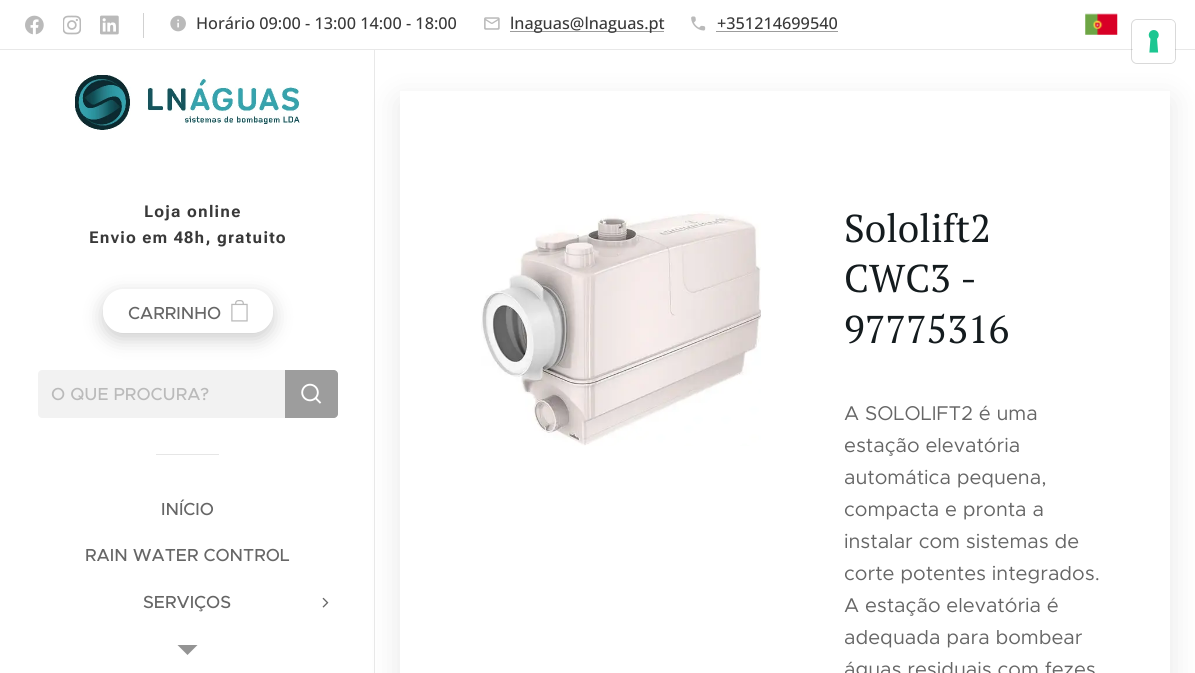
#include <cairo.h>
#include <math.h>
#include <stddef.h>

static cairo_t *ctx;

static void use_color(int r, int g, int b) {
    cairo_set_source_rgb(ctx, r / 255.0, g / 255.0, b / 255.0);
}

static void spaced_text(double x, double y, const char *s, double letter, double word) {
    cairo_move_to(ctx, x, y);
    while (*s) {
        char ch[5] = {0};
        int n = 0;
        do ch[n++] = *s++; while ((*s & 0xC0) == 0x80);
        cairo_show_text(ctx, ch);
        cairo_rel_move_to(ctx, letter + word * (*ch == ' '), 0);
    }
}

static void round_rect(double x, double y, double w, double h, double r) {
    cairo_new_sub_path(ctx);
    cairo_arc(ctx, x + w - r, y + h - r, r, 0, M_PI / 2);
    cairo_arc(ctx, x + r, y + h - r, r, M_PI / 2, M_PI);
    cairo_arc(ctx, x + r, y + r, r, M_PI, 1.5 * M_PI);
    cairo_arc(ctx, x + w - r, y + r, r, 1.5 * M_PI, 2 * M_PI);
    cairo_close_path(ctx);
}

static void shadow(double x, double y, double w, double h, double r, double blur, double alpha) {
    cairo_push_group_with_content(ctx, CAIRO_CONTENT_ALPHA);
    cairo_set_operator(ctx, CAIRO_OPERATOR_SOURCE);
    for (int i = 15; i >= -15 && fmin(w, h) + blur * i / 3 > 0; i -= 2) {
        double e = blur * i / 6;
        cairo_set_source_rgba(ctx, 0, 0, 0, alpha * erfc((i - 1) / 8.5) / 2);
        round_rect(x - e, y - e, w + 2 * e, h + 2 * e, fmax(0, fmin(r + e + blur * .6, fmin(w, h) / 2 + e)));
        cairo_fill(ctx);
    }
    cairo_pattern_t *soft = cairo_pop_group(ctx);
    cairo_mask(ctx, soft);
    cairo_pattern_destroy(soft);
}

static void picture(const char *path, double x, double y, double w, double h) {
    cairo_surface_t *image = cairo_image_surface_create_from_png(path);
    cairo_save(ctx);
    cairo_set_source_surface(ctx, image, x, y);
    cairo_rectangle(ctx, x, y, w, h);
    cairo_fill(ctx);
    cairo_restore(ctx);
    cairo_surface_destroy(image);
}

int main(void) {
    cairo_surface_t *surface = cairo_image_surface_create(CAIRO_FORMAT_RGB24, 1195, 673);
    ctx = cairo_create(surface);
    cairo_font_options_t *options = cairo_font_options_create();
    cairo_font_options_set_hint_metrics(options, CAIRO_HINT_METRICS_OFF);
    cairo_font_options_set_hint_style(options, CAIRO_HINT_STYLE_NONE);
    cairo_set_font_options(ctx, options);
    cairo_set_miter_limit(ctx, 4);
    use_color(255, 255, 255);
    cairo_paint(ctx);
    picture("img1.png", 25, 15, 19, 20);
    picture("img2.png", 63, 15, 18, 20);
    picture("img3.png", 100, 15, 19, 20);
    use_color(209, 209, 209);
    cairo_rectangle(ctx, 143, 13, 1, 25);
    cairo_fill(ctx);
    picture("img4.png", 170, 15, 16, 17);
    cairo_select_font_face(ctx, "Open Sans Medium", CAIRO_FONT_SLANT_NORMAL, CAIRO_FONT_WEIGHT_NORMAL);
    cairo_set_font_size(ctx, 16.25);
    use_color(57, 57, 57);
    cairo_move_to(ctx, 196, 29);
    cairo_show_text(ctx, "Horário 09:00 - 13:00 14:00 - 18:00");
    picture("img5.png", 484, 17, 16, 13);
    use_color(156, 156, 156);
    cairo_rectangle(ctx, 510, 31, 154, 1);
    cairo_fill(ctx);
    use_color(57, 57, 57);
    cairo_move_to(ctx, 510, 29);
    cairo_show_text(ctx, "lnaguas@lnaguas.pt");
    picture("img6.png", 691, 16, 15, 15);
    cairo_move_to(ctx, 717, 29);
    cairo_show_text(ctx, "+351214699540");
    use_color(156, 156, 156);
    cairo_rectangle(ctx, 716, 31, 122, 1);
    cairo_fill(ctx);
    picture("img7.png", 1085, 13, 33, 22);
    use_color(232, 232, 232);
    cairo_rectangle(ctx, 0, 49, 1195, 1);
    cairo_fill(ctx);
    picture("img8.png", 75, 75, 225, 55);
    cairo_select_font_face(ctx, "Roboto Flex", CAIRO_FONT_SLANT_NORMAL, CAIRO_FONT_WEIGHT_BOLD);
    use_color(57, 57, 57);
    spaced_text(144, 217, "Loja online", 1.25, 0);
    spaced_text(89, 243, "Envio em 48h, gratuito", 1.25, 0);
    cairo_save(ctx);
    cairo_set_fill_rule(ctx, CAIRO_FILL_RULE_EVEN_ODD);
    cairo_new_path(ctx);
    cairo_move_to(ctx, 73, 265);
    cairo_line_to(ctx, 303, 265);
    cairo_line_to(ctx, 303, 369);
    cairo_line_to(ctx, 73, 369);
    cairo_close_path(ctx);
    cairo_move_to(ctx, 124, 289);
    cairo_line_to(ctx, 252, 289);
    cairo_curve_to(ctx, 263.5, 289, 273, 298.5, 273, 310);
    cairo_line_to(ctx, 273, 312);
    cairo_curve_to(ctx, 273, 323.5, 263.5, 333, 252, 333);
    cairo_line_to(ctx, 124, 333);
    cairo_curve_to(ctx, 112.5, 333, 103, 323.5, 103, 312);
    cairo_line_to(ctx, 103, 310);
    cairo_curve_to(ctx, 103, 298.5, 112.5, 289, 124, 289);
    cairo_close_path(ctx);
    cairo_clip(ctx);
    use_color(0, 0, 0);
    shadow(103, 295, 170, 44, 21, 9.5, 0.2);
    cairo_restore(ctx);
    cairo_set_source_rgba(ctx, 1, 1, 1, 0.2);
    round_rect(103, 289, 170, 44, 21);
    cairo_fill(ctx);
    cairo_select_font_face(ctx, "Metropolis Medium", CAIRO_FONT_SLANT_NORMAL, CAIRO_FONT_WEIGHT_NORMAL);
    cairo_set_font_size(ctx, 17.5);
    use_color(102, 102, 102);
    cairo_move_to(ctx, 128, 319);
    cairo_show_text(ctx, "CARRINHO");
    picture("img9.png", 231, 300, 17, 22);
    use_color(242, 242, 242);
    cairo_new_path(ctx);
    cairo_move_to(ctx, 42, 370);
    cairo_line_to(ctx, 285, 370);
    cairo_line_to(ctx, 285, 418);
    cairo_line_to(ctx, 42, 418);
    cairo_curve_to(ctx, 40, 418, 38, 416, 38, 414);
    cairo_line_to(ctx, 38, 374);
    cairo_curve_to(ctx, 38, 372, 40, 370, 42, 370);
    cairo_close_path(ctx);
    cairo_fill(ctx);
    use_color(186, 186, 186);
    cairo_move_to(ctx, 51, 400);
    cairo_show_text(ctx, "O QUE PROCURA?");
    use_color(157, 157, 157);
    cairo_new_path(ctx);
    cairo_move_to(ctx, 285, 370);
    cairo_line_to(ctx, 334, 370);
    cairo_curve_to(ctx, 336, 370, 338, 372, 338, 374);
    cairo_line_to(ctx, 338, 414);
    cairo_curve_to(ctx, 338, 416, 336, 418, 334, 418);
    cairo_line_to(ctx, 285, 418);
    cairo_close_path(ctx);
    cairo_fill(ctx);
    picture("img10.png", 301, 383, 21, 21);
    use_color(230, 230, 230);
    cairo_rectangle(ctx, 156, 454, 63, 1);
    cairo_fill(ctx);
    use_color(102, 102, 102);
    cairo_move_to(ctx, 161, 515);
    cairo_show_text(ctx, "INÍCIO");
    cairo_move_to(ctx, 85, 561);
    cairo_show_text(ctx, "RAIN WATER CONTROL");
    cairo_move_to(ctx, 143, 608);
    cairo_show_text(ctx, "SERVIÇOS");
    picture("img11.png", 322, 597, 7, 11);
    use_color(148, 148, 148);
    cairo_new_path(ctx);
    cairo_move_to(ctx, 177.5, 645);
    cairo_line_to(ctx, 197.5, 645);
    cairo_line_to(ctx, 187.5, 655);
    cairo_close_path(ctx);
    cairo_fill(ctx);
    use_color(0, 0, 0);
    shadow(400, 101, 770, 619, 0, 15.5, 0.1);
    use_color(232, 232, 232);
    cairo_rectangle(ctx, 374, 50, 1, 623);
    cairo_fill(ctx);
    use_color(255, 255, 255);
    cairo_rectangle(ctx, 400, 91, 770, 582);
    cairo_fill(ctx);
    picture("img12.png", 481, 211, 280, 235);
    cairo_select_font_face(ctx, "PT Serif", CAIRO_FONT_SLANT_NORMAL, CAIRO_FONT_WEIGHT_NORMAL);
    cairo_set_font_size(ctx, 38.75);
    use_color(20, 27, 30);
    cairo_move_to(ctx, 844, 242);
    cairo_show_text(ctx, "Sololift2");
    cairo_move_to(ctx, 844, 292);
    cairo_show_text(ctx, "CWC3 -");
    cairo_move_to(ctx, 844, 343);
    cairo_show_text(ctx, "97775316");
    cairo_select_font_face(ctx, "Metropolis", CAIRO_FONT_SLANT_NORMAL, CAIRO_FONT_WEIGHT_NORMAL);
    cairo_set_font_size(ctx, 20);
    use_color(102, 102, 102);
    cairo_move_to(ctx, 844, 420);
    cairo_show_text(ctx, "A SOLOLIFT2 é uma");
    cairo_move_to(ctx, 844, 452);
    cairo_show_text(ctx, "estação elevatória");
    cairo_move_to(ctx, 844, 484);
    cairo_show_text(ctx, "automática pequena,");
    cairo_move_to(ctx, 844, 516);
    cairo_show_text(ctx, "compacta e pronta a");
    cairo_move_to(ctx, 844, 548);
    cairo_show_text(ctx, "instalar com sistemas de");
    cairo_move_to(ctx, 844, 580);
    cairo_show_text(ctx, "corte potentes integrados.");
    cairo_move_to(ctx, 844, 612);
    cairo_show_text(ctx, "A estação elevatória é");
    cairo_move_to(ctx, 844, 644);
    cairo_show_text(ctx, "adequada para bombear");
    cairo_move_to(ctx, 844, 676);
    cairo_show_text(ctx, "águas residuais com fezes");
    round_rect(1131.5, 19.5, 44, 44, 5.5);
    cairo_set_source_rgba(ctx, 0, 0, 0, 0.15);
    cairo_set_line_width(ctx, 1);
    cairo_stroke(ctx);
    use_color(255, 255, 255);
    round_rect(1133, 20, 42, 43, 5);
    cairo_fill(ctx);
    picture("img13.png", 1148, 30, 11, 23);
    cairo_surface_write_to_png(surface, "result.png");
    cairo_font_options_destroy(options);
    cairo_destroy(ctx);
    cairo_surface_destroy(surface);
    return 0;
}
